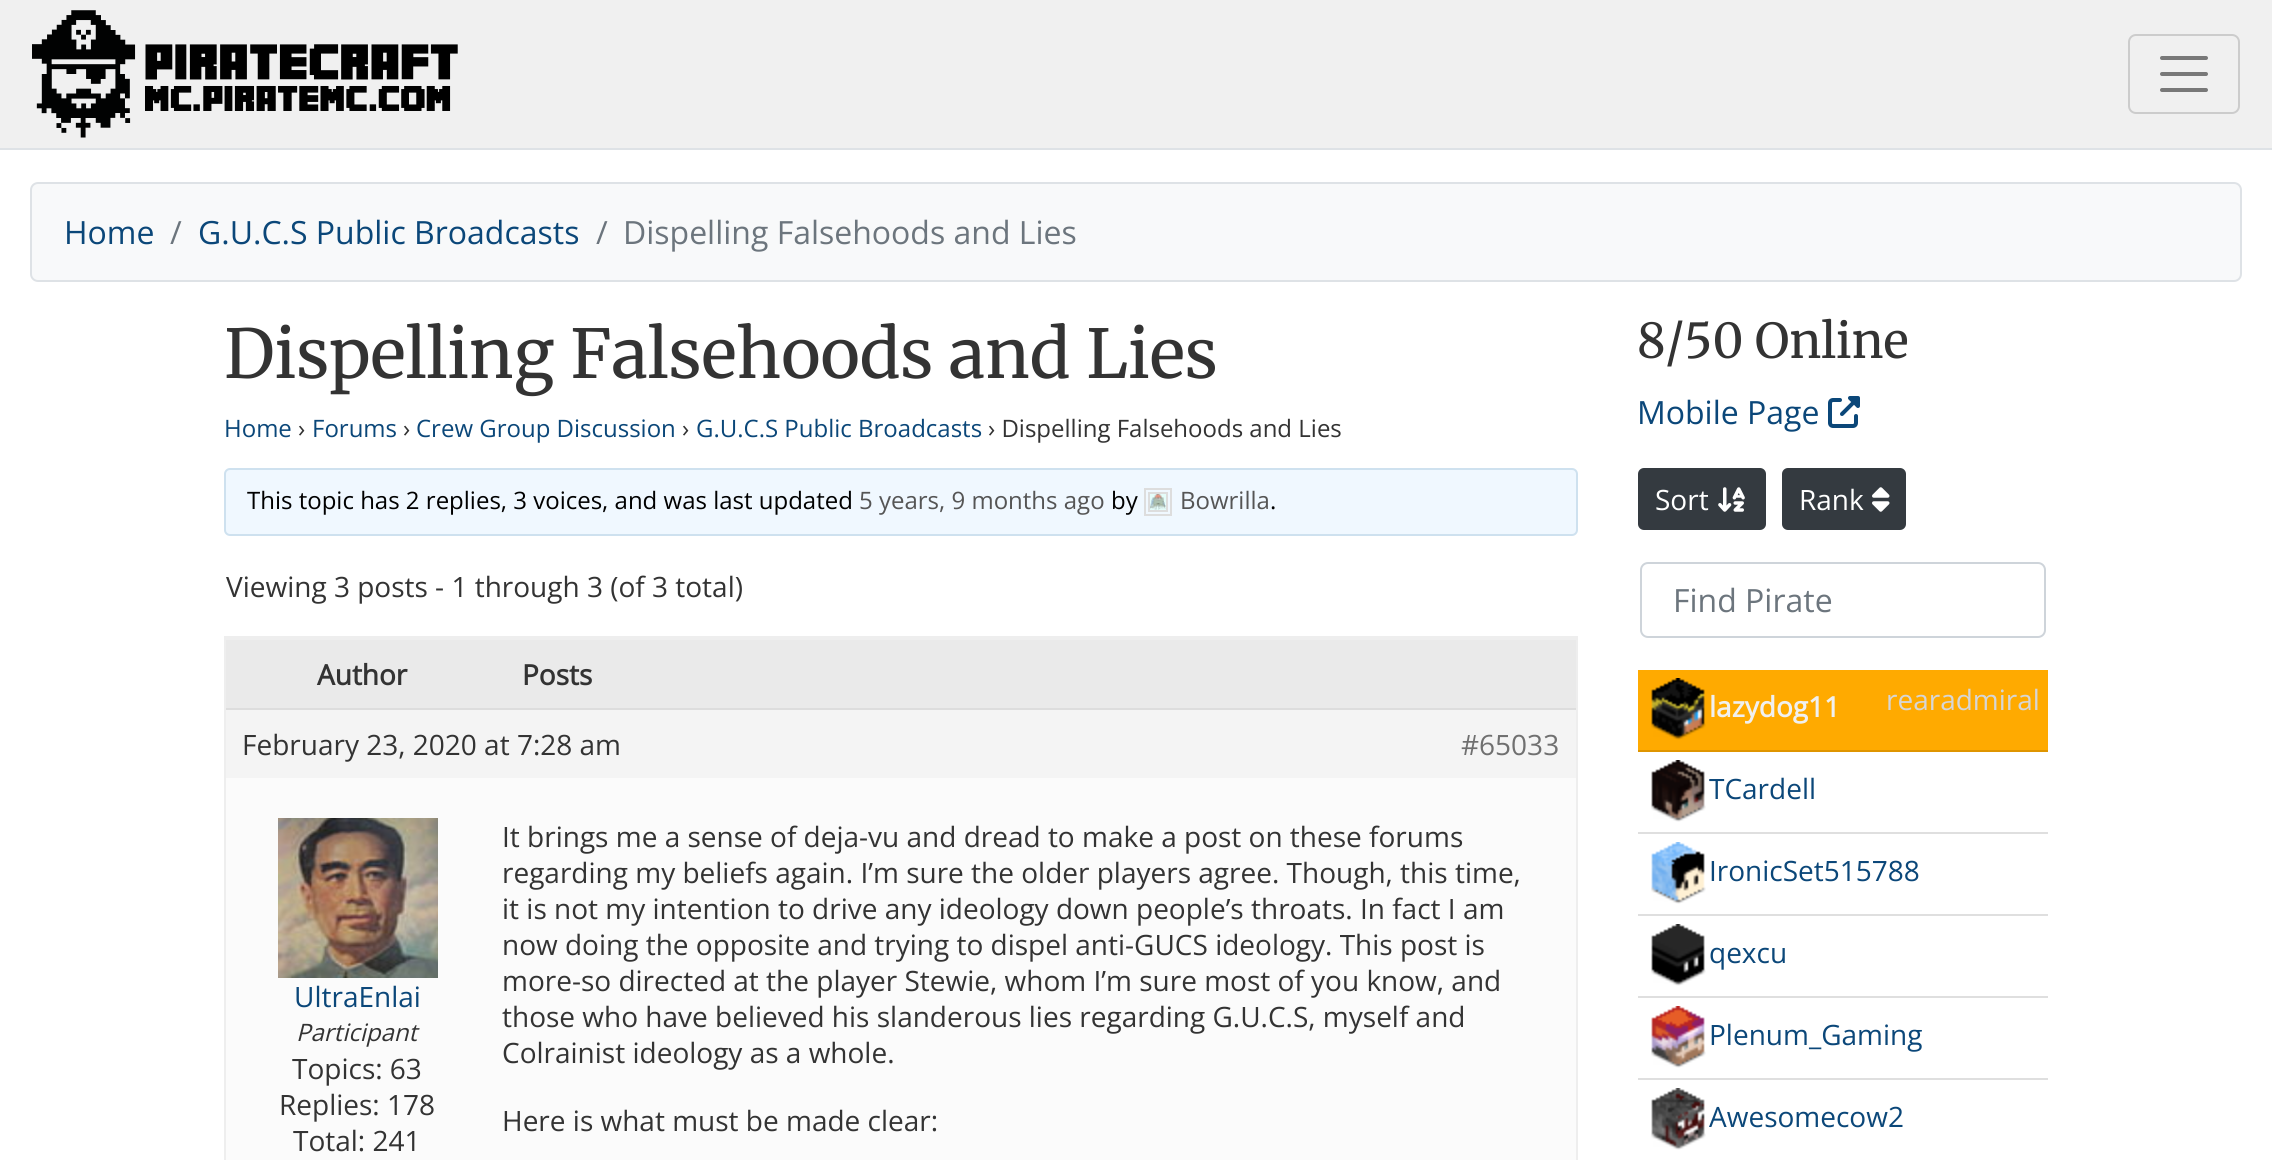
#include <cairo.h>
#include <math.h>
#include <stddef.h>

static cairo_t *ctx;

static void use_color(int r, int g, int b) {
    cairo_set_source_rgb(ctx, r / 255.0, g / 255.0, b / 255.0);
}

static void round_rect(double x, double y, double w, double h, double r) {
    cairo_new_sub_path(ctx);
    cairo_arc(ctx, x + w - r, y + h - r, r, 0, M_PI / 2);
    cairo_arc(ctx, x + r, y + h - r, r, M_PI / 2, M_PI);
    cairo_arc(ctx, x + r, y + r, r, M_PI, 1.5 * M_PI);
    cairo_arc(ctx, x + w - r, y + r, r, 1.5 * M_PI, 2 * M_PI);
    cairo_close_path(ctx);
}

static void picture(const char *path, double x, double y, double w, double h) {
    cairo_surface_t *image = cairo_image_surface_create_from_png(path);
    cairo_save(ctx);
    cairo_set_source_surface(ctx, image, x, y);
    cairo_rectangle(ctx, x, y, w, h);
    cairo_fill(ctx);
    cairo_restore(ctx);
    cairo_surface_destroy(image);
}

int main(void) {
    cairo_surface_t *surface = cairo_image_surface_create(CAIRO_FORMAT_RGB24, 2272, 1160);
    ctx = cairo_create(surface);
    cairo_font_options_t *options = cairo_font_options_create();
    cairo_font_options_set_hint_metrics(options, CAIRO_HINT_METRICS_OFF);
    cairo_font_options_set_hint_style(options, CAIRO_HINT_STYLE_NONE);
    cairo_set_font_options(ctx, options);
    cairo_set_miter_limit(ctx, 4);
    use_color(255, 255, 255);
    cairo_paint(ctx);
    use_color(240, 240, 240);
    cairo_rectangle(ctx, 0, 0, 2272, 148);
    cairo_fill(ctx);
    use_color(222, 226, 230);
    cairo_rectangle(ctx, 0, 148, 2272, 2);
    cairo_fill(ctx);
    picture("img1.png", 32, 10, 426, 128);
    round_rect(2129, 35, 110, 78, 7);
    use_color(204, 204, 204);
    cairo_stroke(ctx);
    cairo_new_path(ctx);
    cairo_move_to(ctx, 2162, 58);
    cairo_line_to(ctx, 2206, 58);
    cairo_move_to(ctx, 2162, 74);
    cairo_line_to(ctx, 2206, 74);
    cairo_move_to(ctx, 2162, 90);
    cairo_line_to(ctx, 2206, 90);
    use_color(120, 120, 120);
    cairo_set_line_width(ctx, 4);
    cairo_set_line_cap(ctx, CAIRO_LINE_CAP_ROUND);
    cairo_stroke(ctx);
    use_color(248, 249, 250);
    round_rect(31, 183, 2210, 98, 7);
    cairo_fill_preserve(ctx);
    use_color(222, 226, 230);
    cairo_set_line_width(ctx, 2);
    cairo_set_line_cap(ctx, CAIRO_LINE_CAP_BUTT);
    cairo_stroke(ctx);
    cairo_select_font_face(ctx, "Open Sans", CAIRO_FONT_SLANT_NORMAL, CAIRO_FONT_WEIGHT_NORMAL);
    cairo_set_font_size(ctx, 32);
    use_color(11, 71, 121);
    cairo_move_to(ctx, 64, 244);
    cairo_show_text(ctx, "Home");
    use_color(108, 117, 125);
    cairo_move_to(ctx, 170, 244);
    cairo_show_text(ctx, "/");
    use_color(11, 71, 121);
    cairo_move_to(ctx, 198, 244);
    cairo_show_text(ctx, "G.U.C.S Public Broadcasts");
    use_color(108, 117, 125);
    cairo_move_to(ctx, 596, 244);
    cairo_show_text(ctx, "/");
    cairo_move_to(ctx, 623, 244);
    cairo_show_text(ctx, "Dispelling Falsehoods and Lies");
    cairo_select_font_face(ctx, "Merriweather Light", CAIRO_FONT_SLANT_NORMAL, CAIRO_FONT_WEIGHT_NORMAL);
    cairo_set_font_size(ctx, 67.25);
    use_color(51, 51, 51);
    cairo_move_to(ctx, 224, 378);
    cairo_show_text(ctx, "Dispelling Falsehoods and Lies");
    cairo_select_font_face(ctx, "Open Sans", CAIRO_FONT_SLANT_NORMAL, CAIRO_FONT_WEIGHT_NORMAL);
    cairo_set_font_size(ctx, 24);
    use_color(11, 71, 121);
    cairo_move_to(ctx, 224, 437);
    cairo_show_text(ctx, "Home");
    use_color(51, 51, 51);
    cairo_move_to(ctx, 298, 437);
    cairo_show_text(ctx, "›");
    use_color(11, 71, 121);
    cairo_move_to(ctx, 312, 437);
    cairo_show_text(ctx, "Forums");
    use_color(51, 51, 51);
    cairo_move_to(ctx, 403, 437);
    cairo_show_text(ctx, "›");
    use_color(11, 71, 121);
    cairo_move_to(ctx, 416, 437);
    cairo_show_text(ctx, "Crew Group Discussion");
    use_color(51, 51, 51);
    cairo_move_to(ctx, 682, 437);
    cairo_show_text(ctx, "›");
    use_color(11, 71, 121);
    cairo_move_to(ctx, 696, 437);
    cairo_show_text(ctx, "G.U.C.S Public Broadcasts");
    use_color(51, 51, 51);
    cairo_move_to(ctx, 988, 437);
    cairo_show_text(ctx, "› Dispelling Falsehoods and Lies");
    use_color(240, 248, 255);
    round_rect(225, 469, 1352, 66, 5);
    cairo_fill_preserve(ctx);
    use_color(206, 225, 239);
    cairo_stroke(ctx);
    use_color(0, 0, 0);
    cairo_move_to(ctx, 247, 509);
    cairo_show_text(ctx, "This topic has 2 replies, 3 voices, and was last updated");
    use_color(85, 85, 85);
    cairo_move_to(ctx, 859, 509);
    cairo_show_text(ctx, "5 years, 9 months ago");
    use_color(0, 0, 0);
    cairo_move_to(ctx, 1111, 509);
    cairo_show_text(ctx, "by");
    cairo_rectangle(ctx, 1145, 489, 26, 26);
    use_color(221, 221, 221);
    cairo_stroke(ctx);
    cairo_rectangle(ctx, 1149, 493, 18, 18);
    cairo_stroke(ctx);
    picture("img2.png", 1150, 494, 16, 16);
    use_color(85, 85, 85);
    cairo_move_to(ctx, 1180, 509);
    cairo_show_text(ctx, "Bowrilla");
    use_color(0, 0, 0);
    cairo_move_to(ctx, 1270, 509);
    cairo_show_text(ctx, ".");
    cairo_set_font_size(ctx, 28);
    use_color(51, 51, 51);
    cairo_move_to(ctx, 226, 597);
    cairo_show_text(ctx, "Viewing 3 posts - 1 through 3 (of 3 total)");
    cairo_rectangle(ctx, 225, 637, 1352, 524);
    use_color(238, 238, 238);
    cairo_stroke(ctx);
    use_color(234, 234, 234);
    cairo_rectangle(ctx, 226, 640, 1350, 68);
    cairo_fill(ctx);
    use_color(238, 238, 238);
    cairo_rectangle(ctx, 226, 638, 1350, 2);
    cairo_fill(ctx);
    cairo_select_font_face(ctx, "Open Sans", CAIRO_FONT_SLANT_NORMAL, CAIRO_FONT_WEIGHT_BOLD);
    use_color(51, 51, 51);
    cairo_move_to(ctx, 317, 685);
    cairo_show_text(ctx, "Author");
    cairo_move_to(ctx, 522, 685);
    cairo_show_text(ctx, "Posts");
    use_color(244, 244, 244);
    cairo_rectangle(ctx, 226, 710, 1350, 68);
    cairo_fill(ctx);
    use_color(221, 221, 221);
    cairo_rectangle(ctx, 226, 708, 1350, 2);
    cairo_fill(ctx);
    cairo_select_font_face(ctx, "Open Sans", CAIRO_FONT_SLANT_NORMAL, CAIRO_FONT_WEIGHT_NORMAL);
    use_color(51, 51, 51);
    cairo_move_to(ctx, 242, 755);
    cairo_show_text(ctx, "February 23, 2020 at 7:28 am");
    use_color(112, 112, 112);
    cairo_move_to(ctx, 1461, 755);
    cairo_show_text(ctx, "#65033");
    use_color(251, 251, 251);
    cairo_rectangle(ctx, 226, 778, 1350, 382);
    cairo_fill(ctx);
    picture("img3.png", 278, 818, 160, 160);
    use_color(11, 71, 121);
    cairo_move_to(ctx, 294, 1007);
    cairo_show_text(ctx, "UltraEnlai");
    cairo_select_font_face(ctx, "Open Sans", CAIRO_FONT_SLANT_ITALIC, CAIRO_FONT_WEIGHT_NORMAL);
    cairo_set_font_size(ctx, 24);
    use_color(51, 51, 51);
    cairo_move_to(ctx, 296, 1041);
    cairo_show_text(ctx, "Participant");
    cairo_select_font_face(ctx, "Open Sans", CAIRO_FONT_SLANT_NORMAL, CAIRO_FONT_WEIGHT_NORMAL);
    cairo_set_font_size(ctx, 28);
    cairo_move_to(ctx, 292, 1079);
    cairo_show_text(ctx, "Topics: 63");
    cairo_move_to(ctx, 279, 1115);
    cairo_show_text(ctx, "Replies: 178");
    cairo_move_to(ctx, 293, 1151);
    cairo_show_text(ctx, "Total: 241");
    cairo_move_to(ctx, 502, 847);
    cairo_show_text(ctx, "It brings me a sense of deja-vu and dread to make a post on these forums");
    cairo_move_to(ctx, 502, 883);
    cairo_show_text(ctx, "regarding my beliefs again. I’m sure the older players agree. Though, this time,");
    cairo_move_to(ctx, 502, 919);
    cairo_show_text(ctx, "it is not my intention to drive any ideology down people’s throats. In fact I am");
    cairo_move_to(ctx, 502, 955);
    cairo_show_text(ctx, "now doing the opposite and trying to dispel anti-GUCS ideology. This post is");
    cairo_move_to(ctx, 502, 991);
    cairo_show_text(ctx, "more-so directed at the player Stewie, whom I’m sure most of you know, and");
    cairo_move_to(ctx, 502, 1027);
    cairo_show_text(ctx, "those who have believed his slanderous lies regarding G.U.C.S, myself and");
    cairo_move_to(ctx, 502, 1063);
    cairo_show_text(ctx, "Colrainist ideology as a whole.");
    cairo_move_to(ctx, 502, 1131);
    cairo_show_text(ctx, "Here is what must be made clear:");
    cairo_select_font_face(ctx, "Merriweather Light", CAIRO_FONT_SLANT_NORMAL, CAIRO_FONT_WEIGHT_NORMAL);
    cairo_set_font_size(ctx, 48);
    cairo_move_to(ctx, 1637, 358);
    cairo_show_text(ctx, "8/50 Online");
    cairo_select_font_face(ctx, "Open Sans", CAIRO_FONT_SLANT_NORMAL, CAIRO_FONT_WEIGHT_NORMAL);
    cairo_set_font_size(ctx, 32);
    use_color(11, 71, 121);
    cairo_move_to(ctx, 1637, 424);
    cairo_show_text(ctx, "Mobile Page");
    picture("img4.png", 1828, 396, 32, 32);
    use_color(52, 58, 64);
    round_rect(1639, 469, 126, 60, 5);
    cairo_fill_preserve(ctx);
    cairo_stroke(ctx);
    cairo_set_font_size(ctx, 28);
    use_color(255, 255, 255);
    cairo_move_to(ctx, 1655, 510);
    cairo_show_text(ctx, "Sort");
    picture("img5.png", 1718, 487, 27, 25);
    use_color(52, 58, 64);
    round_rect(1783, 469, 122, 60, 5);
    cairo_fill_preserve(ctx);
    cairo_stroke(ctx);
    use_color(255, 255, 255);
    cairo_move_to(ctx, 1799, 510);
    cairo_show_text(ctx, "Rank");
    picture("img6.png", 1872, 487, 18, 25);
    round_rect(1641, 563, 404, 74, 7);
    use_color(206, 212, 218);
    cairo_stroke(ctx);
    cairo_set_font_size(ctx, 32);
    use_color(108, 117, 125);
    cairo_move_to(ctx, 1673, 612);
    cairo_show_text(ctx, "Find Pirate");
    use_color(255, 170, 0);
    cairo_rectangle(ctx, 1638, 670, 410, 80);
    cairo_fill(ctx);
    use_color(223, 149, 0);
    cairo_rectangle(ctx, 1638, 750, 410, 2);
    cairo_fill(ctx);
    picture("img7.png", 1651, 678, 55, 62);
    cairo_select_font_face(ctx, "Open Sans", CAIRO_FONT_SLANT_NORMAL, CAIRO_FONT_WEIGHT_BOLD);
    cairo_set_font_size(ctx, 28);
    use_color(240, 240, 240);
    cairo_move_to(ctx, 1709, 717);
    cairo_show_text(ctx, "lazydog11");
    cairo_select_font_face(ctx, "Open Sans", CAIRO_FONT_SLANT_NORMAL, CAIRO_FONT_WEIGHT_NORMAL);
    use_color(214, 214, 214);
    cairo_move_to(ctx, 1886, 710);
    cairo_show_text(ctx, "rearadmiral");
    use_color(223, 223, 223);
    cairo_rectangle(ctx, 1638, 832, 410, 2);
    cairo_fill(ctx);
    picture("img8.png", 1651, 760, 55, 62);
    use_color(11, 71, 121);
    cairo_move_to(ctx, 1709, 799);
    cairo_show_text(ctx, "TCardell");
    use_color(223, 223, 223);
    cairo_rectangle(ctx, 1638, 914, 410, 2);
    cairo_fill(ctx);
    picture("img9.png", 1651, 842, 55, 62);
    use_color(11, 71, 121);
    cairo_move_to(ctx, 1709, 881);
    cairo_show_text(ctx, "IronicSet515788");
    use_color(223, 223, 223);
    cairo_rectangle(ctx, 1638, 996, 410, 2);
    cairo_fill(ctx);
    picture("img10.png", 1651, 924, 55, 62);
    use_color(11, 71, 121);
    cairo_move_to(ctx, 1709, 963);
    cairo_show_text(ctx, "qexcu");
    use_color(223, 223, 223);
    cairo_rectangle(ctx, 1638, 1078, 410, 2);
    cairo_fill(ctx);
    picture("img11.png", 1651, 1006, 55, 62);
    use_color(11, 71, 121);
    cairo_move_to(ctx, 1709, 1045);
    cairo_show_text(ctx, "Plenum_Gaming");
    picture("img12.png", 1651, 1088, 55, 62);
    cairo_move_to(ctx, 1709, 1127);
    cairo_show_text(ctx, "Awesomecow2");
    cairo_surface_write_to_png(surface, "result.png");
    cairo_font_options_destroy(options);
    cairo_destroy(ctx);
    cairo_surface_destroy(surface);
    return 0;
}
